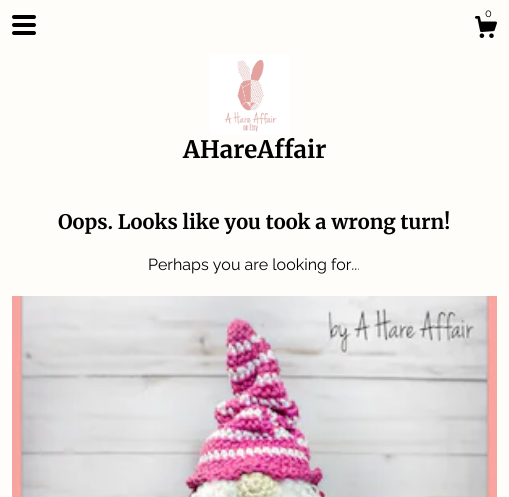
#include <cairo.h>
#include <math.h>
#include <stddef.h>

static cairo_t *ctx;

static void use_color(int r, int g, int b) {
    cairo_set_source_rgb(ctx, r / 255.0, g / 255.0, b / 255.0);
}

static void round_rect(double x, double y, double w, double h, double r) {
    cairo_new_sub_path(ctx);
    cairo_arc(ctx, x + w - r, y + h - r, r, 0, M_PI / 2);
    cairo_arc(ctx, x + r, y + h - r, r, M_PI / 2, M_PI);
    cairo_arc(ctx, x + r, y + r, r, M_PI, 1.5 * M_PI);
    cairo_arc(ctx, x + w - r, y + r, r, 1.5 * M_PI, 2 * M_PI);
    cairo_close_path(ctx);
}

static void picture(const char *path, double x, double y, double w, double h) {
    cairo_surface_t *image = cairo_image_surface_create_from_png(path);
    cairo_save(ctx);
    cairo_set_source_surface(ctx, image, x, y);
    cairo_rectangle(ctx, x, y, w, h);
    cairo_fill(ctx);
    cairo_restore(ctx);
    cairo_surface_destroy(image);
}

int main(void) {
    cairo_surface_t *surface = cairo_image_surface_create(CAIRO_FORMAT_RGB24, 509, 497);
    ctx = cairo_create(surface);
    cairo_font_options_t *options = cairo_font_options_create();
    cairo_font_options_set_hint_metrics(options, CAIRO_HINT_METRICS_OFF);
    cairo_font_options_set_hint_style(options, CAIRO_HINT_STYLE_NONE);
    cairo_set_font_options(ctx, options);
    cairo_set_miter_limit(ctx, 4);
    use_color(255, 253, 250);
    cairo_paint(ctx);
    picture("img1.png", 475, 16, 22, 22);
    cairo_select_font_face(ctx, "Raleway", CAIRO_FONT_SLANT_NORMAL, CAIRO_FONT_WEIGHT_NORMAL);
    cairo_set_font_size(ctx, 11);
    use_color(0, 0, 0);
    cairo_move_to(ctx, 485, 17);
    cairo_show_text(ctx, "0");
    round_rect(12, 15, 24, 4, 2);
    cairo_fill(ctx);
    round_rect(12, 23, 24, 4, 2);
    cairo_fill(ctx);
    round_rect(12, 31, 24, 4, 2);
    cairo_fill(ctx);
    picture("img2.png", 210, 55, 80, 80);
    cairo_select_font_face(ctx, "Merriweather", CAIRO_FONT_SLANT_NORMAL, CAIRO_FONT_WEIGHT_BOLD);
    cairo_set_font_size(ctx, 24);
    cairo_move_to(ctx, 183, 158);
    cairo_show_text(ctx, "AHareAffair");
    cairo_set_font_size(ctx, 20);
    cairo_move_to(ctx, 58, 229);
    cairo_show_text(ctx, "Oops. Looks like you took a wrong turn!");
    cairo_select_font_face(ctx, "Raleway", CAIRO_FONT_SLANT_NORMAL, CAIRO_FONT_WEIGHT_NORMAL);
    cairo_set_font_size(ctx, 16);
    cairo_move_to(ctx, 148, 270);
    cairo_show_text(ctx, "Perhaps you are looking for...");
    picture("img3.png", 12, 296, 485, 201);
    cairo_surface_write_to_png(surface, "result.png");
    cairo_font_options_destroy(options);
    cairo_destroy(ctx);
    cairo_surface_destroy(surface);
    return 0;
}
